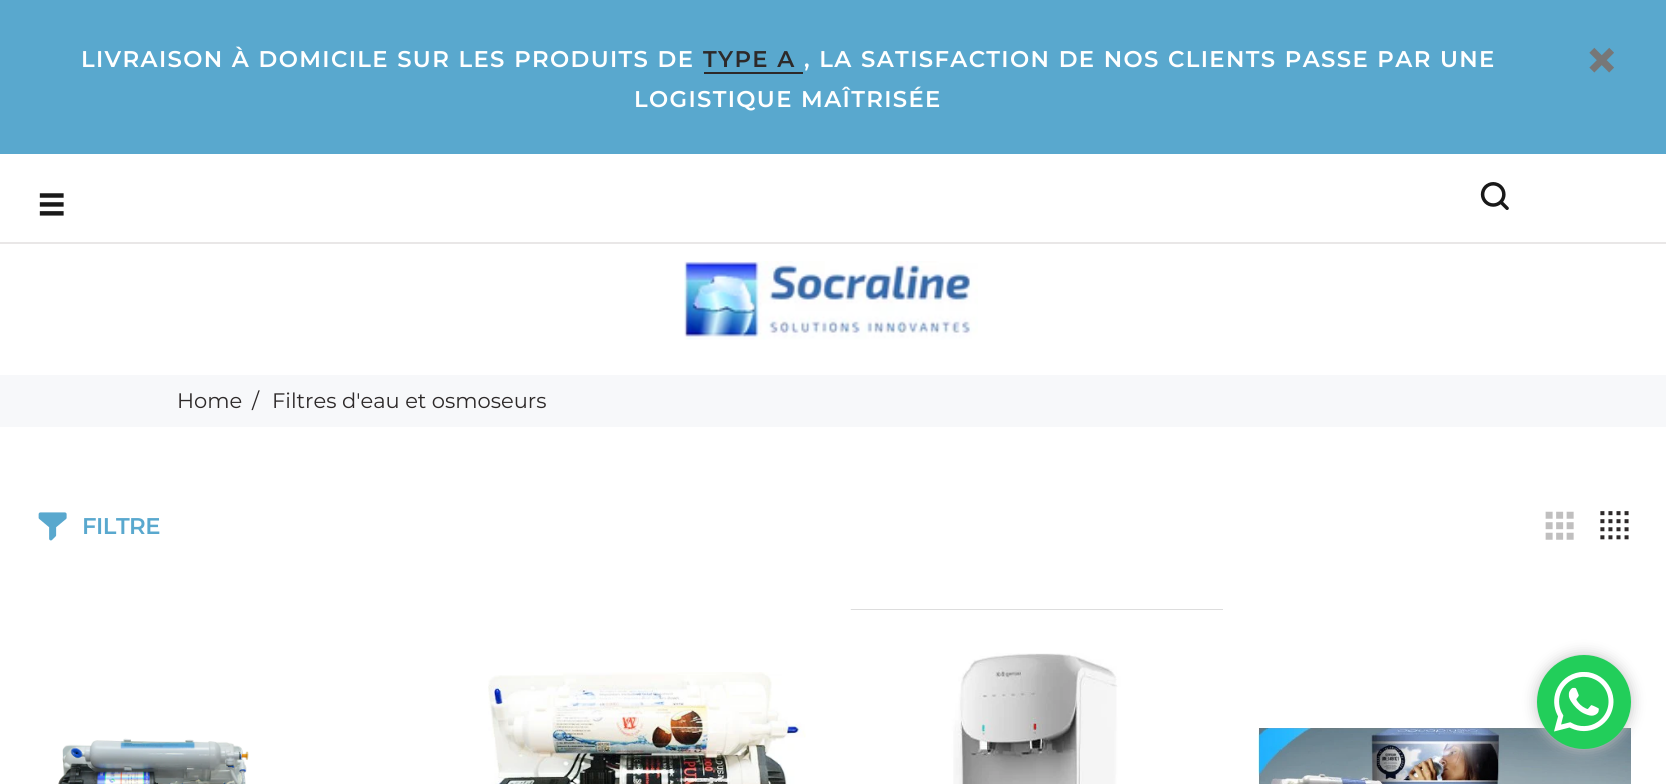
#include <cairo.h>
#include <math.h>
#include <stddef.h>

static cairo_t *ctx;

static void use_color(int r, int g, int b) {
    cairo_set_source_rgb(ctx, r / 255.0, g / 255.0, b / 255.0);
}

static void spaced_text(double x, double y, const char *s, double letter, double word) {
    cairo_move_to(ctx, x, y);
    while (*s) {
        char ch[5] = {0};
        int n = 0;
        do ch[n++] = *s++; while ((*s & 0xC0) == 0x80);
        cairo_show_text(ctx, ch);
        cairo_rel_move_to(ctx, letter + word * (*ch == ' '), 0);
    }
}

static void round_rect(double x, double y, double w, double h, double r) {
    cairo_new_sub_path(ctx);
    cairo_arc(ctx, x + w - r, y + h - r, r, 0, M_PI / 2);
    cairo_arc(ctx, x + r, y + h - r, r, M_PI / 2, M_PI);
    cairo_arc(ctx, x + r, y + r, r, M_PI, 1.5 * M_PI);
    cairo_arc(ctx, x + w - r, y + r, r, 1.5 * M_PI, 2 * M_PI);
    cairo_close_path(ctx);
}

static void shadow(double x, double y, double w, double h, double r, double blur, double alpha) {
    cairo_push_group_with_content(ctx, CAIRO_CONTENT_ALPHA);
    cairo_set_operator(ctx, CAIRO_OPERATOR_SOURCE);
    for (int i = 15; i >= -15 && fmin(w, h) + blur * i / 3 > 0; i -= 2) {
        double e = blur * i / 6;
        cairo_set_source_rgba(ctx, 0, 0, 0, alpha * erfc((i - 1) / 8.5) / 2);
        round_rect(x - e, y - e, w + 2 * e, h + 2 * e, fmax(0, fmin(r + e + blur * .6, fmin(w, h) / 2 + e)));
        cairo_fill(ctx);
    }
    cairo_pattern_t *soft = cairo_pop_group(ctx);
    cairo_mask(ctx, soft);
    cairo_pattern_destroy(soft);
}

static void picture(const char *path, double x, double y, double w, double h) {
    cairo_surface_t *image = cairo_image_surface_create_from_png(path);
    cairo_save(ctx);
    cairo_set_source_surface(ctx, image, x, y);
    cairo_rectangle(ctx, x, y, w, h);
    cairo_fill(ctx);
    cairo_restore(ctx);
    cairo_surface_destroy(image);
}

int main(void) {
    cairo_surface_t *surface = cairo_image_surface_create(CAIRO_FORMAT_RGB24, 1666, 784);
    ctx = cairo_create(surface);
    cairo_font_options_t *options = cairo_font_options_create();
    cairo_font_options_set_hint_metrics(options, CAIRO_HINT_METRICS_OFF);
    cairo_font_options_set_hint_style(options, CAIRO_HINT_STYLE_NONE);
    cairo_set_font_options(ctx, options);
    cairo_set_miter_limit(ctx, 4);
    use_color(255, 255, 255);
    cairo_paint(ctx);
    use_color(89, 168, 206);
    cairo_rectangle(ctx, 0, 0, 1666, 154);
    cairo_fill(ctx);
    cairo_select_font_face(ctx, "Montserrat SemiBold", CAIRO_FONT_SLANT_NORMAL, CAIRO_FONT_WEIGHT_NORMAL);
    cairo_set_font_size(ctx, 22.75);
    use_color(255, 255, 255);
    spaced_text(81, 67, "LIVRAISON À DOMICILE SUR LES PRODUITS DE", 1.35, 0.75);
    use_color(45, 41, 41);
    spaced_text(703, 67, "TYPE A", 1.35, 0.75);
    cairo_rectangle(ctx, 704, 72, 99, 2);
    cairo_fill(ctx);
    use_color(255, 255, 255);
    spaced_text(804, 67, ", LA SATISFACTION DE NOS CLIENTS PASSE PAR UNE", 1.35, 0.75);
    spaced_text(634, 107, "LOGISTIQUE MAÎTRISÉE", 1.35, 0.75);
    picture("img1.png", 1589, 47, 25, 26);
    picture("img2.png", 39, 193, 25, 23);
    picture("img3.png", 1480, 182, 29, 28);
    use_color(233, 231, 231);
    cairo_rectangle(ctx, 0, 242, 1666, 2);
    cairo_fill(ctx);
    picture("img4.png", 684, 261, 294, 79);
    use_color(247, 248, 250);
    cairo_rectangle(ctx, 0, 375, 1666, 52);
    cairo_fill(ctx);
    cairo_select_font_face(ctx, "Montserrat", CAIRO_FONT_SLANT_NORMAL, CAIRO_FONT_WEIGHT_NORMAL);
    cairo_set_font_size(ctx, 21);
    use_color(45, 41, 41);
    cairo_move_to(ctx, 177, 408);
    cairo_show_text(ctx, "Home");
    cairo_move_to(ctx, 252, 408);
    cairo_show_text(ctx, "/");
    cairo_move_to(ctx, 272, 408);
    cairo_show_text(ctx, "Filtres d'eau et osmoseurs");
    picture("img5.png", 38, 512, 29, 29);
    cairo_select_font_face(ctx, "Montserrat SemiBold", CAIRO_FONT_SLANT_NORMAL, CAIRO_FONT_WEIGHT_NORMAL);
    cairo_set_font_size(ctx, 22.75);
    use_color(89, 168, 206);
    spaced_text(82, 534, "FILTRE", -0.5, 0);
    picture("img6.png", 1545, 511, 29, 29);
    picture("img7.png", 1600, 511, 29, 29);
    picture("img8.png", 58, 738, 191, 46);
    picture("img9.png", 488, 672, 318, 112);
    picture("img10.png", 850, 609, 373, 175);
    picture("img11.png", 1258, 728, 373, 56);
    use_color(194, 194, 194);
    shadow(1537, 655, 94, 94, 47, 7, 1);
    use_color(34, 206, 90);
    cairo_arc(ctx, 1584, 702, 47, 0, 2 * M_PI);
    cairo_fill(ctx);
    picture("img12.png", 1554, 672, 60, 60);
    cairo_surface_write_to_png(surface, "result.png");
    cairo_font_options_destroy(options);
    cairo_destroy(ctx);
    cairo_surface_destroy(surface);
    return 0;
}
